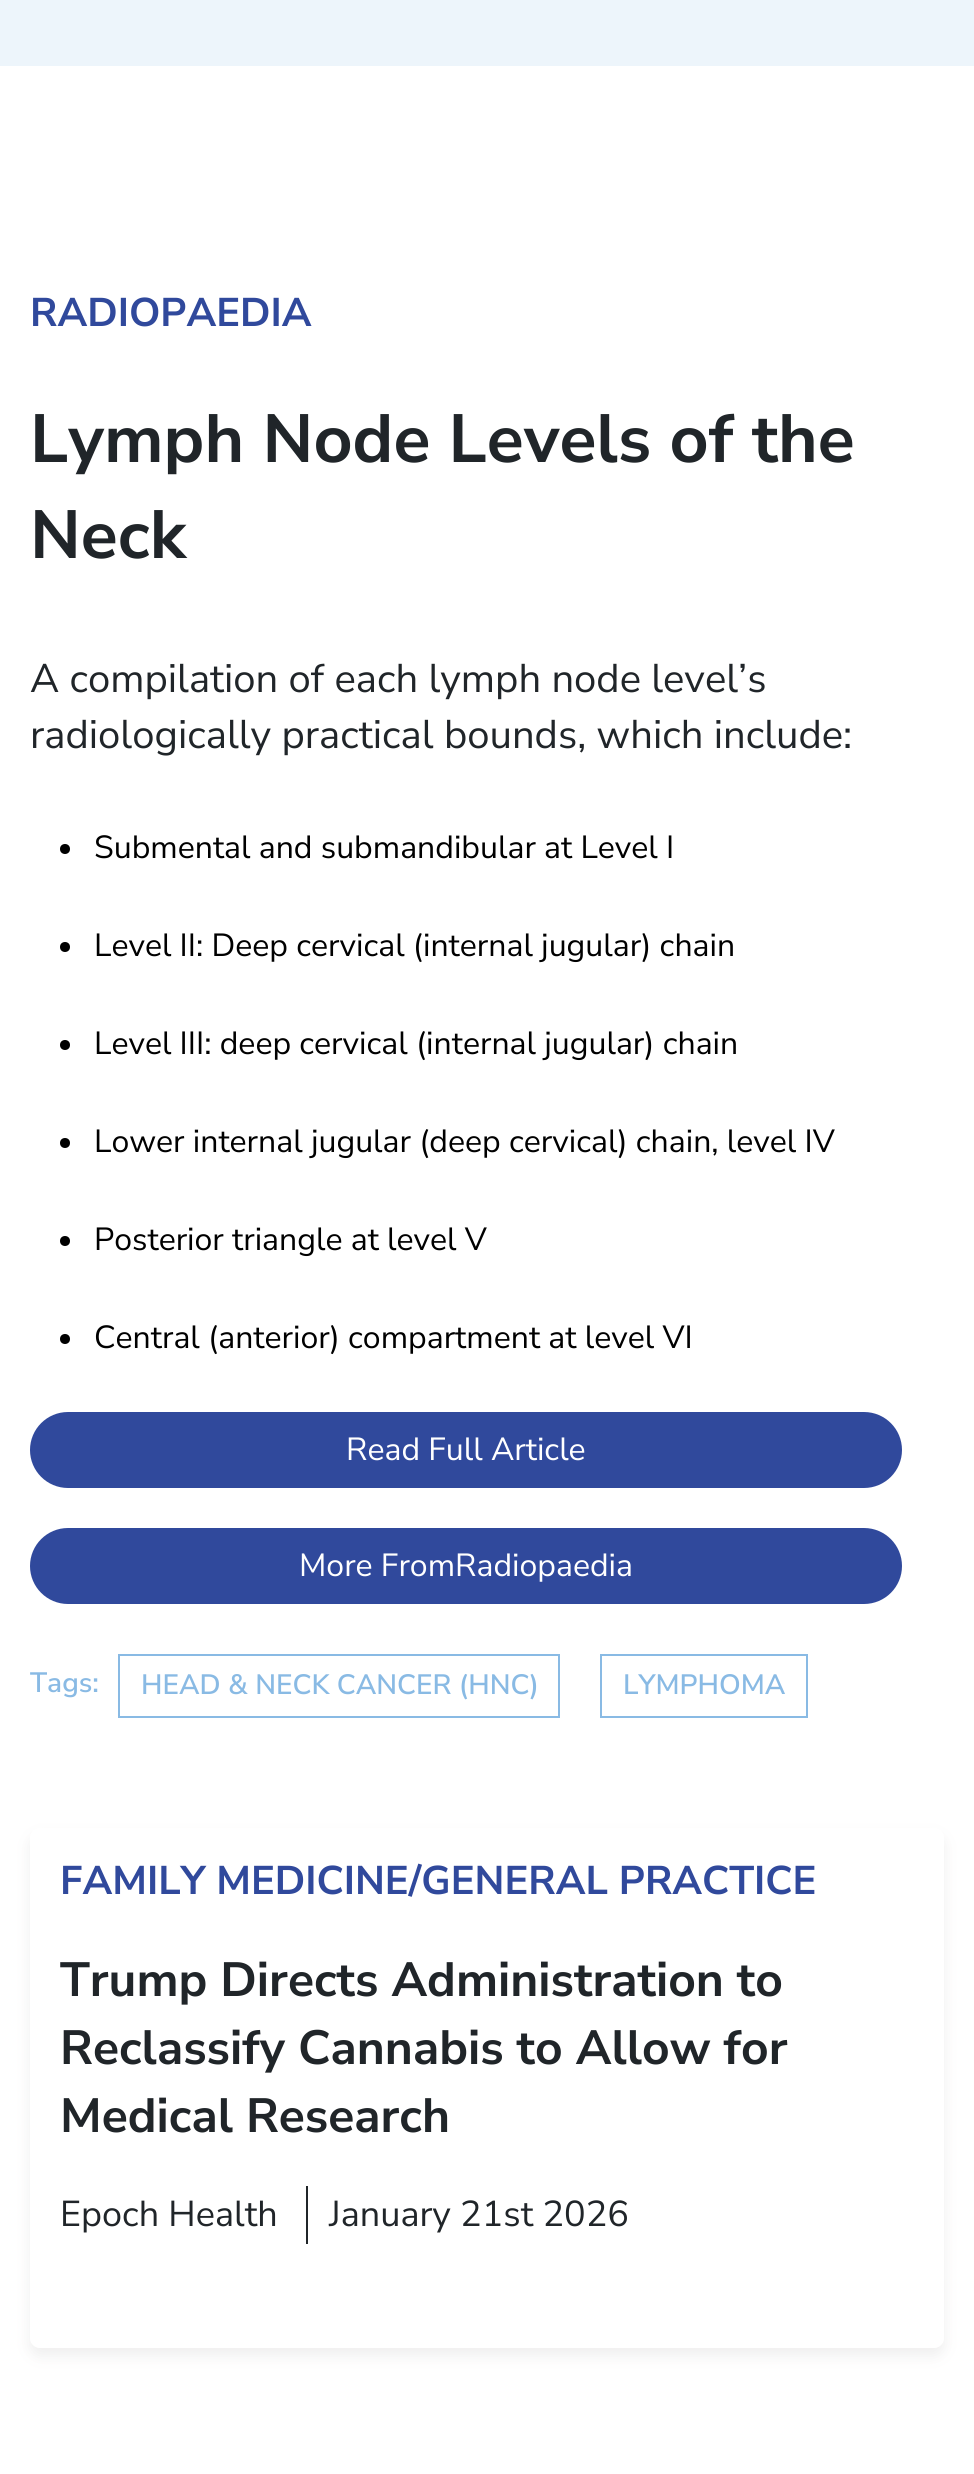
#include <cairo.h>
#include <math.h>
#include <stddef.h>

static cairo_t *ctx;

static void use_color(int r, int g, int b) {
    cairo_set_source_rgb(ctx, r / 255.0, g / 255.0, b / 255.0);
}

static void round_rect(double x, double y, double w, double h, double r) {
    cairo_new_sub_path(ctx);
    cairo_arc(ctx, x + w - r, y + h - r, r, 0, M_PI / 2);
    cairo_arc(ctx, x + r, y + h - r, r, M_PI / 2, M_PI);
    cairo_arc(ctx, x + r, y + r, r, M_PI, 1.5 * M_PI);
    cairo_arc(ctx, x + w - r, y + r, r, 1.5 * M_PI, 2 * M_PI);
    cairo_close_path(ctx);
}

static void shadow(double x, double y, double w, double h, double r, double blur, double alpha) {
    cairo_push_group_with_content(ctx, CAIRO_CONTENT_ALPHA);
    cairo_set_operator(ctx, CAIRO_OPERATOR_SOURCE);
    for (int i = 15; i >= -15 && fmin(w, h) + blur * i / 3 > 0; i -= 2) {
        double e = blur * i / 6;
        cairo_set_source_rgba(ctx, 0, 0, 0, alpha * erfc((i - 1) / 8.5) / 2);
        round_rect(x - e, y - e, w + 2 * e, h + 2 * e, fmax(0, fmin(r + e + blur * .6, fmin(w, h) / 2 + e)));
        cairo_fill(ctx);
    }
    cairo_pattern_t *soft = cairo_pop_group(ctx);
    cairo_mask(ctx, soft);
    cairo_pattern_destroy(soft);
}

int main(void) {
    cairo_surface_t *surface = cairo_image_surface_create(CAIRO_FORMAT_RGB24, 974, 2474);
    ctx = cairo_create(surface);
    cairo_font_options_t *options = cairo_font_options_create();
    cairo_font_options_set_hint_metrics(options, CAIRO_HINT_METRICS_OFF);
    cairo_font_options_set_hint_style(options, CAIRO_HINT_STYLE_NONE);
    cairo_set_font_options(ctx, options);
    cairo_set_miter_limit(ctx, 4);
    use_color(255, 255, 255);
    cairo_paint(ctx);
    use_color(237, 245, 251);
    cairo_rectangle(ctx, 0, 0, 974, 66);
    cairo_fill(ctx);
    cairo_select_font_face(ctx, "Nunito Sans", CAIRO_FONT_SLANT_NORMAL, CAIRO_FONT_WEIGHT_BOLD);
    cairo_set_font_size(ctx, 40);
    use_color(48, 73, 156);
    cairo_move_to(ctx, 30, 326);
    cairo_show_text(ctx, "RADIOPAEDIA");
    cairo_set_font_size(ctx, 68);
    use_color(32, 37, 41);
    cairo_move_to(ctx, 30, 462);
    cairo_show_text(ctx, "Lymph Node Levels of the");
    cairo_move_to(ctx, 30, 558);
    cairo_show_text(ctx, "Neck");
    cairo_select_font_face(ctx, "Nunito Sans", CAIRO_FONT_SLANT_NORMAL, CAIRO_FONT_WEIGHT_NORMAL);
    cairo_set_font_size(ctx, 40);
    cairo_move_to(ctx, 30, 692);
    cairo_show_text(ctx, "A compilation of each lymph node level’s");
    cairo_move_to(ctx, 30, 748);
    cairo_show_text(ctx, "radiologically practical bounds, which include:");
    use_color(0, 0, 0);
    cairo_new_path(ctx);
    cairo_arc(ctx, 65, 849, 5, 0, 2 * M_PI);
    cairo_fill(ctx);
    cairo_set_font_size(ctx, 32);
    cairo_move_to(ctx, 94, 858);
    cairo_show_text(ctx, "Submental and submandibular at Level I");
    cairo_new_path(ctx);
    cairo_arc(ctx, 65, 947, 5, 0, 2 * M_PI);
    cairo_fill(ctx);
    cairo_move_to(ctx, 94, 956);
    cairo_show_text(ctx, "Level II: Deep cervical (internal jugular) chain");
    cairo_new_path(ctx);
    cairo_arc(ctx, 65, 1045, 5, 0, 2 * M_PI);
    cairo_fill(ctx);
    cairo_move_to(ctx, 94, 1054);
    cairo_show_text(ctx, "Level III: deep cervical (internal jugular) chain");
    cairo_new_path(ctx);
    cairo_arc(ctx, 65, 1143, 5, 0, 2 * M_PI);
    cairo_fill(ctx);
    cairo_move_to(ctx, 94, 1152);
    cairo_show_text(ctx, "Lower internal jugular (deep cervical) chain, level IV");
    cairo_new_path(ctx);
    cairo_arc(ctx, 65, 1241, 5, 0, 2 * M_PI);
    cairo_fill(ctx);
    cairo_move_to(ctx, 94, 1250);
    cairo_show_text(ctx, "Posterior triangle at level V");
    cairo_new_path(ctx);
    cairo_arc(ctx, 65, 1339, 5, 0, 2 * M_PI);
    cairo_fill(ctx);
    cairo_move_to(ctx, 94, 1348);
    cairo_show_text(ctx, "Central (anterior) compartment at level VI");
    use_color(48, 73, 156);
    round_rect(30, 1412, 872, 76, 38);
    cairo_fill(ctx);
    use_color(255, 255, 255);
    cairo_move_to(ctx, 346, 1460);
    cairo_show_text(ctx, "Read Full Article");
    use_color(48, 73, 156);
    round_rect(30, 1528, 872, 76, 38);
    cairo_fill(ctx);
    use_color(255, 255, 255);
    cairo_move_to(ctx, 299, 1576);
    cairo_show_text(ctx, "More FromRadiopaedia");
    cairo_select_font_face(ctx, "Nunito Sans SemiBold", CAIRO_FONT_SLANT_NORMAL, CAIRO_FONT_WEIGHT_NORMAL);
    cairo_set_font_size(ctx, 28);
    use_color(137, 186, 228);
    cairo_move_to(ctx, 30, 1692);
    cairo_show_text(ctx, "Tags:");
    cairo_rectangle(ctx, 119, 1655, 440, 62);
    cairo_stroke(ctx);
    cairo_move_to(ctx, 141, 1694);
    cairo_show_text(ctx, "HEAD & NECK CANCER (HNC)");
    cairo_rectangle(ctx, 601, 1655, 206, 62);
    cairo_stroke(ctx);
    cairo_move_to(ctx, 623, 1694);
    cairo_show_text(ctx, "LYMPHOMA");
    cairo_save(ctx);
    cairo_set_fill_rule(ctx, CAIRO_FILL_RULE_EVEN_ODD);
    cairo_new_path(ctx);
    cairo_move_to(ctx, 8, 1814);
    cairo_line_to(ctx, 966, 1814);
    cairo_line_to(ctx, 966, 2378);
    cairo_line_to(ctx, 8, 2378);
    cairo_close_path(ctx);
    cairo_move_to(ctx, 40, 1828);
    cairo_line_to(ctx, 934, 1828);
    cairo_curve_to(ctx, 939.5, 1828, 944, 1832.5, 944, 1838);
    cairo_line_to(ctx, 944, 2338);
    cairo_curve_to(ctx, 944, 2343.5, 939.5, 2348, 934, 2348);
    cairo_line_to(ctx, 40, 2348);
    cairo_curve_to(ctx, 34.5, 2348, 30, 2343.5, 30, 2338);
    cairo_line_to(ctx, 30, 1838);
    cairo_curve_to(ctx, 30, 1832.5, 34.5, 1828, 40, 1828);
    cairo_close_path(ctx);
    cairo_clip(ctx);
    use_color(192, 189, 189);
    shadow(30, 1836, 914, 520, 10, 7, 0.25);
    cairo_restore(ctx);
    cairo_select_font_face(ctx, "Nunito Sans", CAIRO_FONT_SLANT_NORMAL, CAIRO_FONT_WEIGHT_BOLD);
    cairo_set_font_size(ctx, 40);
    use_color(48, 73, 156);
    cairo_move_to(ctx, 60, 1894);
    cairo_show_text(ctx, "FAMILY MEDICINE/GENERAL PRACTICE");
    cairo_set_font_size(ctx, 48);
    use_color(32, 37, 41);
    cairo_move_to(ctx, 60, 1996);
    cairo_show_text(ctx, "Trump Directs Administration to");
    cairo_move_to(ctx, 60, 2064);
    cairo_show_text(ctx, "Reclassify Cannabis to Allow for");
    cairo_move_to(ctx, 60, 2132);
    cairo_show_text(ctx, "Medical Research");
    cairo_select_font_face(ctx, "Nunito Sans", CAIRO_FONT_SLANT_NORMAL, CAIRO_FONT_WEIGHT_NORMAL);
    cairo_set_font_size(ctx, 36);
    cairo_move_to(ctx, 60, 2226);
    cairo_show_text(ctx, "Epoch Health");
    cairo_rectangle(ctx, 306, 2186, 2, 58);
    cairo_fill(ctx);
    cairo_move_to(ctx, 329, 2226);
    cairo_show_text(ctx, "January 21st 2026");
    cairo_surface_write_to_png(surface, "result.png");
    cairo_font_options_destroy(options);
    cairo_destroy(ctx);
    cairo_surface_destroy(surface);
    return 0;
}
